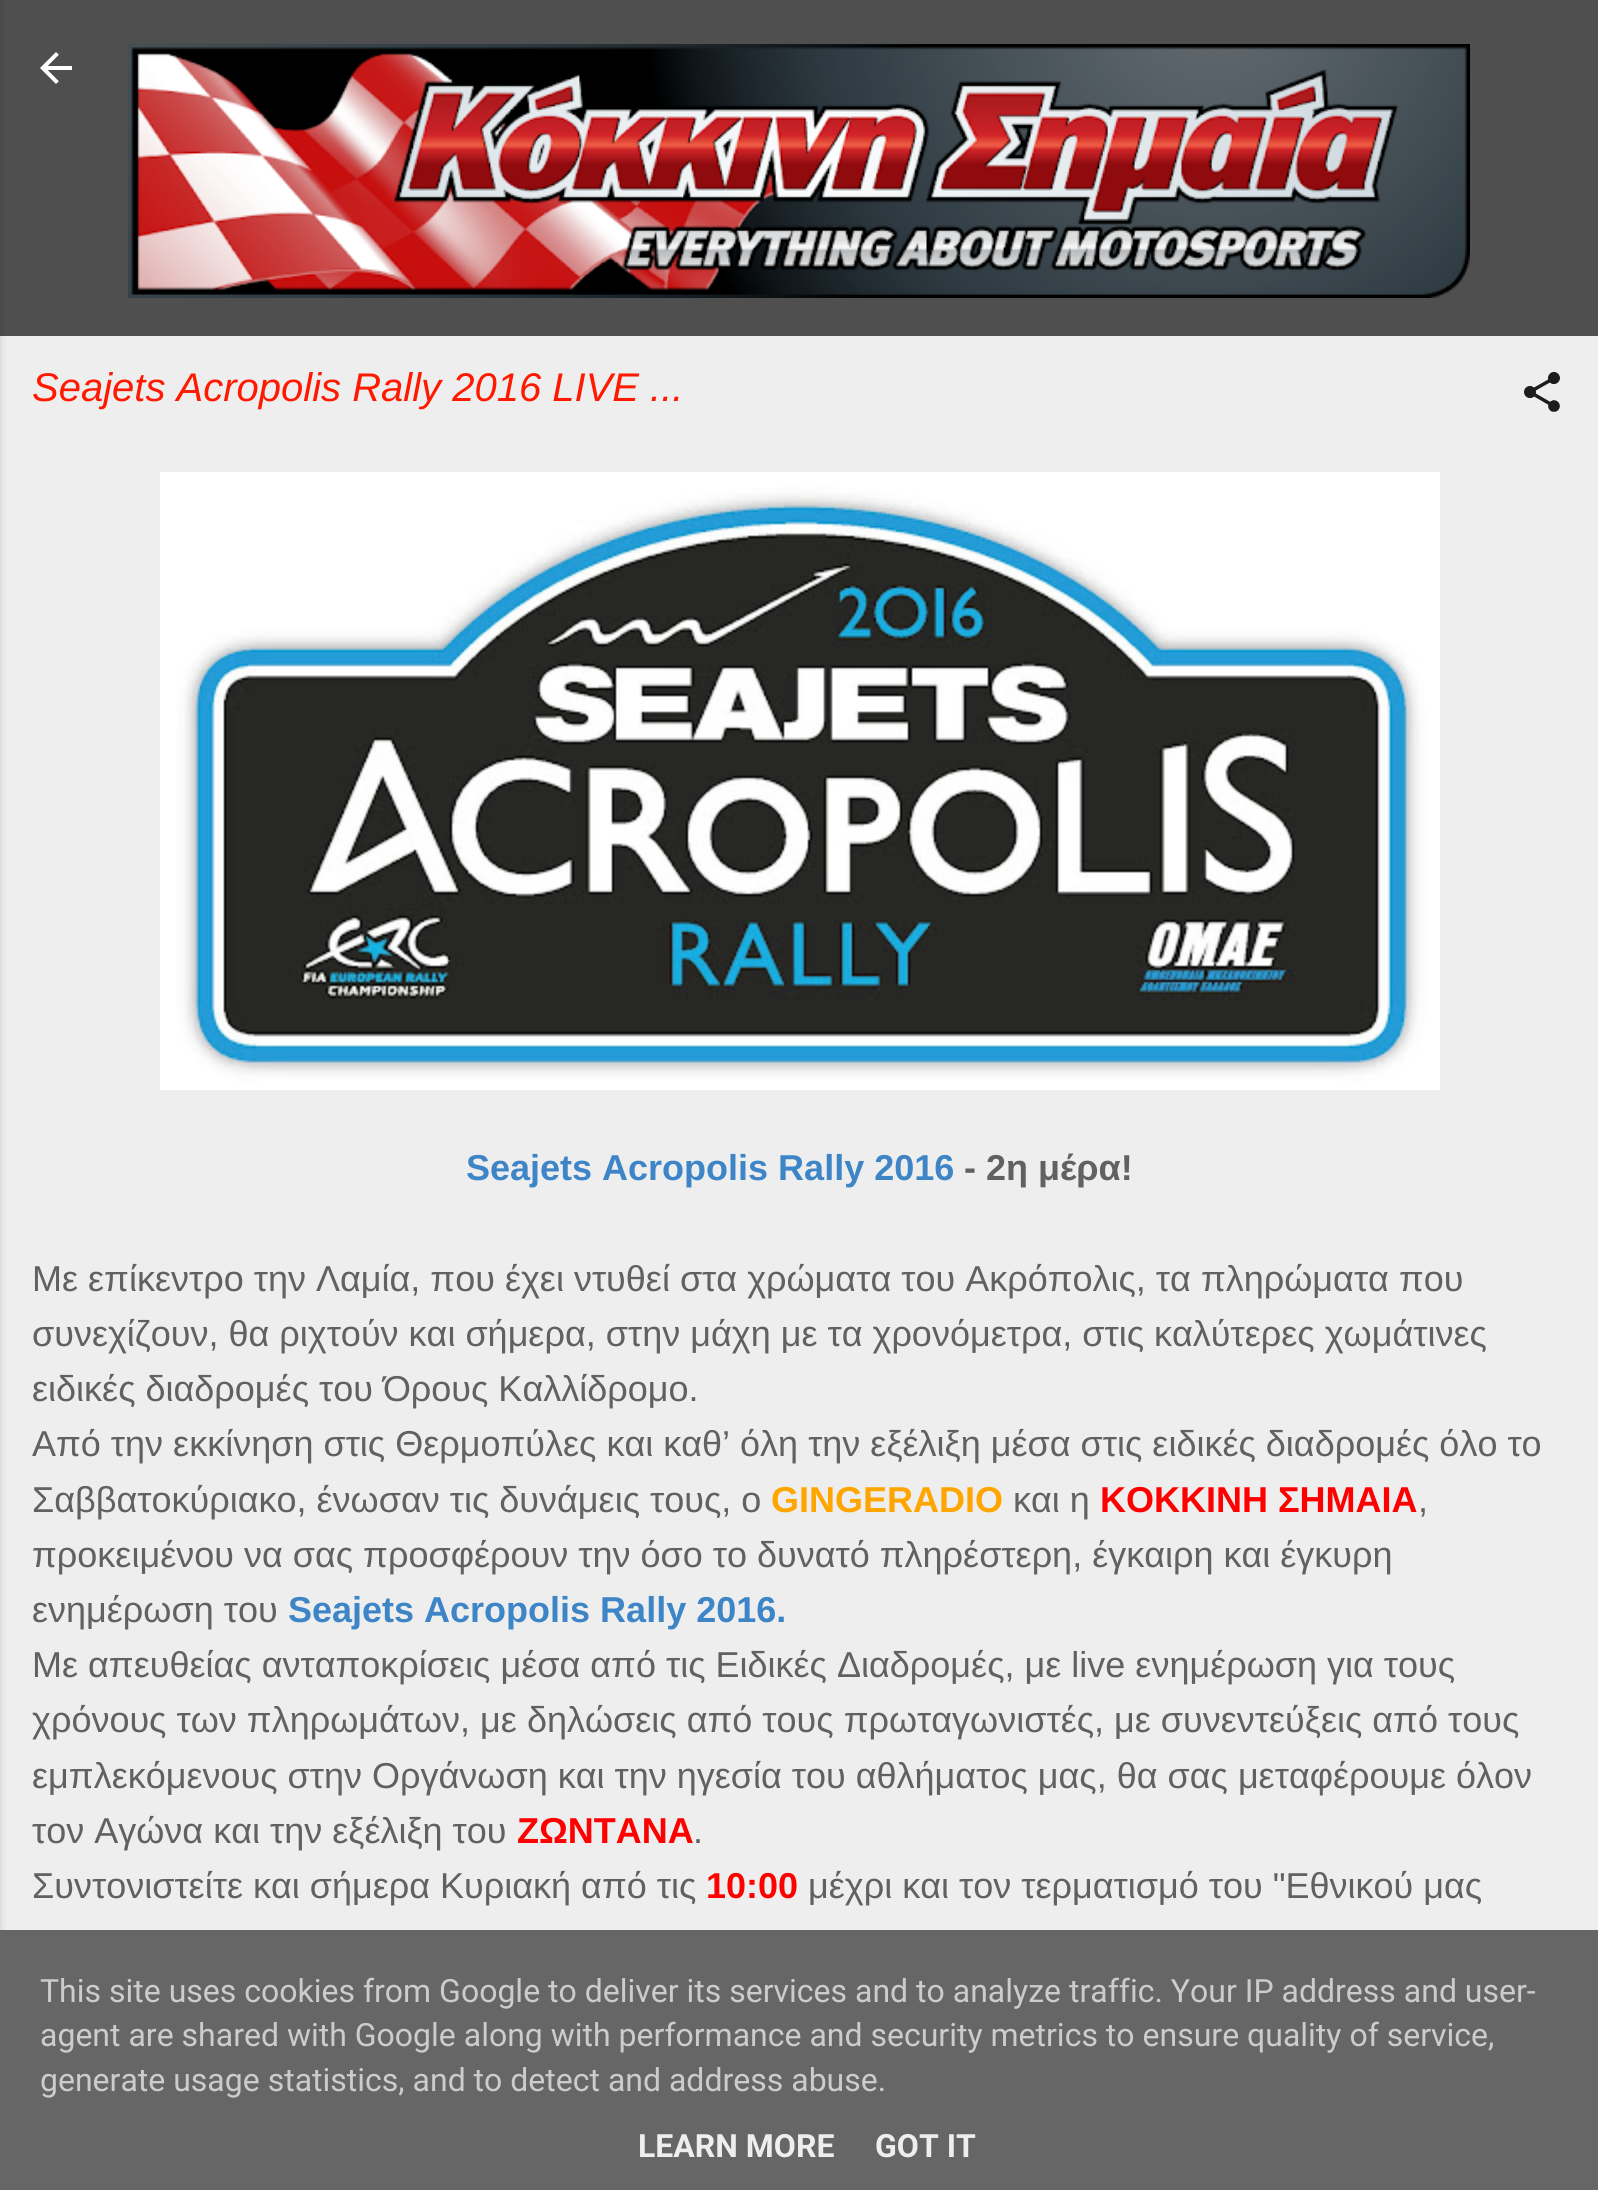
#include <cairo.h>
#include <math.h>
#include <stddef.h>

static cairo_t *ctx;

static void use_color(int r, int g, int b) {
    cairo_set_source_rgb(ctx, r / 255.0, g / 255.0, b / 255.0);
}

static void round_rect(double x, double y, double w, double h, double r) {
    cairo_new_sub_path(ctx);
    cairo_arc(ctx, x + w - r, y + h - r, r, 0, M_PI / 2);
    cairo_arc(ctx, x + r, y + h - r, r, M_PI / 2, M_PI);
    cairo_arc(ctx, x + r, y + r, r, M_PI, 1.5 * M_PI);
    cairo_arc(ctx, x + w - r, y + r, r, 1.5 * M_PI, 2 * M_PI);
    cairo_close_path(ctx);
}

static void shadow(double x, double y, double w, double h, double r, double blur, double alpha) {
    cairo_push_group_with_content(ctx, CAIRO_CONTENT_ALPHA);
    cairo_set_operator(ctx, CAIRO_OPERATOR_SOURCE);
    for (int i = 15; i >= -15 && fmin(w, h) + blur * i / 3 > 0; i -= 2) {
        double e = blur * i / 6;
        cairo_set_source_rgba(ctx, 0, 0, 0, alpha * erfc((i - 1) / 8.5) / 2);
        round_rect(x - e, y - e, w + 2 * e, h + 2 * e, fmax(0, fmin(r + e + blur * .6, fmin(w, h) / 2 + e)));
        cairo_fill(ctx);
    }
    cairo_pattern_t *soft = cairo_pop_group(ctx);
    cairo_mask(ctx, soft);
    cairo_pattern_destroy(soft);
}

static void picture(const char *path, double x, double y, double w, double h) {
    cairo_surface_t *image = cairo_image_surface_create_from_png(path);
    cairo_save(ctx);
    cairo_set_source_surface(ctx, image, x, y);
    cairo_rectangle(ctx, x, y, w, h);
    cairo_fill(ctx);
    cairo_restore(ctx);
    cairo_surface_destroy(image);
}

int main(void) {
    cairo_surface_t *surface = cairo_image_surface_create(CAIRO_FORMAT_RGB24, 1598, 2190);
    ctx = cairo_create(surface);
    cairo_font_options_t *options = cairo_font_options_create();
    cairo_font_options_set_hint_metrics(options, CAIRO_HINT_METRICS_OFF);
    cairo_font_options_set_hint_style(options, CAIRO_HINT_STYLE_NONE);
    cairo_set_font_options(ctx, options);
    cairo_set_miter_limit(ctx, 4);
    use_color(79, 79, 79);
    cairo_paint(ctx);
    use_color(238, 238, 238);
    cairo_rectangle(ctx, 0, 336, 1598, 1594);
    cairo_fill(ctx);
    use_color(0, 0, 0);
    shadow(-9, 2, 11, 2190, 0, 3, 0.1);
    picture("img1.png", 40, 52, 32, 32);
    picture("img2.png", 128, 44, 1342, 254);
    cairo_select_font_face(ctx, "Liberation Sans", CAIRO_FONT_SLANT_ITALIC, CAIRO_FONT_WEIGHT_NORMAL);
    cairo_set_font_size(ctx, 40);
    use_color(255, 25, 0);
    cairo_move_to(ctx, 32, 401);
    cairo_show_text(ctx, "Seajets Acropolis Rally 2016 LIVE ...");
    picture("img3.png", 1524, 372, 36, 40);
    picture("img4.png", 160, 472, 1280, 618);
    cairo_select_font_face(ctx, "Liberation Sans", CAIRO_FONT_SLANT_NORMAL, CAIRO_FONT_WEIGHT_BOLD);
    cairo_set_font_size(ctx, 36);
    use_color(61, 133, 198);
    cairo_move_to(ctx, 466, 1180);
    cairo_show_text(ctx, "Seajets Acropolis Rally 2016");
    use_color(97, 97, 97);
    cairo_move_to(ctx, 964, 1180);
    cairo_show_text(ctx, "- 2η μέρα!");
    cairo_select_font_face(ctx, "Liberation Sans", CAIRO_FONT_SLANT_NORMAL, CAIRO_FONT_WEIGHT_NORMAL);
    cairo_move_to(ctx, 32, 1291);
    cairo_show_text(ctx, "Με επίκεντρο την Λαμία, που έχει ντυθεί στα χρώματα του Ακρόπολις, τα πληρώματα που");
    cairo_move_to(ctx, 32, 1346);
    cairo_show_text(ctx, "συνεχίζουν, θα ριχτούν και σήμερα, στην μάχη με τα χρονόμετρα, στις καλύτερες χωμάτινες");
    cairo_move_to(ctx, 32, 1401);
    cairo_show_text(ctx, "ειδικές διαδρομές του Όρους Καλλίδρομο.");
    cairo_move_to(ctx, 32, 1456);
    cairo_show_text(ctx, "Από την εκκίνηση στις Θερμοπύλες και καθ’ όλη την εξέλιξη μέσα στις ειδικές διαδρομές όλο το");
    cairo_move_to(ctx, 32, 1512);
    cairo_show_text(ctx, "Σαββατοκύριακο, ένωσαν τις δυνάμεις τους, ο");
    cairo_select_font_face(ctx, "Liberation Sans", CAIRO_FONT_SLANT_NORMAL, CAIRO_FONT_WEIGHT_BOLD);
    use_color(255, 165, 0);
    cairo_move_to(ctx, 771, 1512);
    cairo_show_text(ctx, "GINGERADIO");
    cairo_select_font_face(ctx, "Liberation Sans", CAIRO_FONT_SLANT_NORMAL, CAIRO_FONT_WEIGHT_NORMAL);
    use_color(97, 97, 97);
    cairo_move_to(ctx, 1013, 1512);
    cairo_show_text(ctx, "και η");
    cairo_select_font_face(ctx, "Liberation Sans", CAIRO_FONT_SLANT_NORMAL, CAIRO_FONT_WEIGHT_BOLD);
    use_color(255, 0, 0);
    cairo_move_to(ctx, 1100, 1512);
    cairo_show_text(ctx, "ΚΟΚΚΙΝΗ ΣΗΜΑΙΑ");
    cairo_select_font_face(ctx, "Liberation Sans", CAIRO_FONT_SLANT_NORMAL, CAIRO_FONT_WEIGHT_NORMAL);
    use_color(97, 97, 97);
    cairo_move_to(ctx, 1418, 1512);
    cairo_show_text(ctx, ",");
    cairo_move_to(ctx, 32, 1567);
    cairo_show_text(ctx, "προκειμένου να σας προσφέρουν την όσο το δυνατό πληρέστερη, έγκαιρη και έγκυρη");
    cairo_move_to(ctx, 32, 1622);
    cairo_show_text(ctx, "ενημέρωση του");
    cairo_select_font_face(ctx, "Liberation Sans", CAIRO_FONT_SLANT_NORMAL, CAIRO_FONT_WEIGHT_BOLD);
    use_color(61, 133, 198);
    cairo_move_to(ctx, 288, 1622);
    cairo_show_text(ctx, "Seajets Acropolis Rally 2016.");
    cairo_select_font_face(ctx, "Liberation Sans", CAIRO_FONT_SLANT_NORMAL, CAIRO_FONT_WEIGHT_NORMAL);
    use_color(97, 97, 97);
    cairo_move_to(ctx, 32, 1677);
    cairo_show_text(ctx, "Με απευθείας ανταποκρίσεις μέσα από τις Ειδικές Διαδρομές, με live ενημέρωση για τους");
    cairo_move_to(ctx, 32, 1732);
    cairo_show_text(ctx, "χρόνους των πληρωμάτων, με δηλώσεις από τους πρωταγωνιστές, με συνεντεύξεις από τους");
    cairo_move_to(ctx, 32, 1788);
    cairo_show_text(ctx, "εμπλεκόμενους στην Οργάνωση και την ηγεσία του αθλήματος μας, θα σας μεταφέρουμε όλον");
    cairo_move_to(ctx, 32, 1843);
    cairo_show_text(ctx, "τον Αγώνα και την εξέλιξη του");
    cairo_select_font_face(ctx, "Liberation Sans", CAIRO_FONT_SLANT_NORMAL, CAIRO_FONT_WEIGHT_BOLD);
    use_color(255, 0, 0);
    cairo_move_to(ctx, 517, 1843);
    cairo_show_text(ctx, "ΖΩΝΤΑΝΑ");
    cairo_select_font_face(ctx, "Liberation Sans", CAIRO_FONT_SLANT_NORMAL, CAIRO_FONT_WEIGHT_NORMAL);
    use_color(97, 97, 97);
    cairo_move_to(ctx, 693, 1843);
    cairo_show_text(ctx, ".");
    cairo_move_to(ctx, 32, 1898);
    cairo_show_text(ctx, "Συντονιστείτε και σήμερα Κυριακή από τις");
    cairo_select_font_face(ctx, "Liberation Sans", CAIRO_FONT_SLANT_NORMAL, CAIRO_FONT_WEIGHT_BOLD);
    use_color(255, 0, 0);
    cairo_move_to(ctx, 706, 1898);
    cairo_show_text(ctx, "10:00");
    cairo_select_font_face(ctx, "Liberation Sans", CAIRO_FONT_SLANT_NORMAL, CAIRO_FONT_WEIGHT_NORMAL);
    use_color(97, 97, 97);
    cairo_move_to(ctx, 808, 1898);
    cairo_show_text(ctx, "μέχρι και τον τερματισμό του \"Εθνικού μας");
    use_color(102, 102, 102);
    cairo_rectangle(ctx, 0, 1930, 1598, 260);
    cairo_fill(ctx);
    cairo_select_font_face(ctx, "Roboto", CAIRO_FONT_SLANT_NORMAL, CAIRO_FONT_WEIGHT_NORMAL);
    cairo_set_font_size(ctx, 32);
    use_color(204, 204, 204);
    cairo_move_to(ctx, 40, 2002);
    cairo_show_text(ctx, "This site uses cookies from Google to deliver its services and to analyze traffic. Your IP address and user-");
    cairo_move_to(ctx, 40, 2046);
    cairo_show_text(ctx, "agent are shared with Google along with performance and security metrics to ensure quality of service,");
    cairo_move_to(ctx, 40, 2091);
    cairo_show_text(ctx, "generate usage statistics, and to detect and address abuse.");
    cairo_select_font_face(ctx, "Roboto", CAIRO_FONT_SLANT_NORMAL, CAIRO_FONT_WEIGHT_BOLD);
    use_color(238, 238, 238);
    cairo_move_to(ctx, 638, 2157);
    cairo_show_text(ctx, "LEARN MORE");
    cairo_move_to(ctx, 875, 2157);
    cairo_show_text(ctx, "GOT IT");
    cairo_surface_write_to_png(surface, "result.png");
    cairo_font_options_destroy(options);
    cairo_destroy(ctx);
    cairo_surface_destroy(surface);
    return 0;
}
